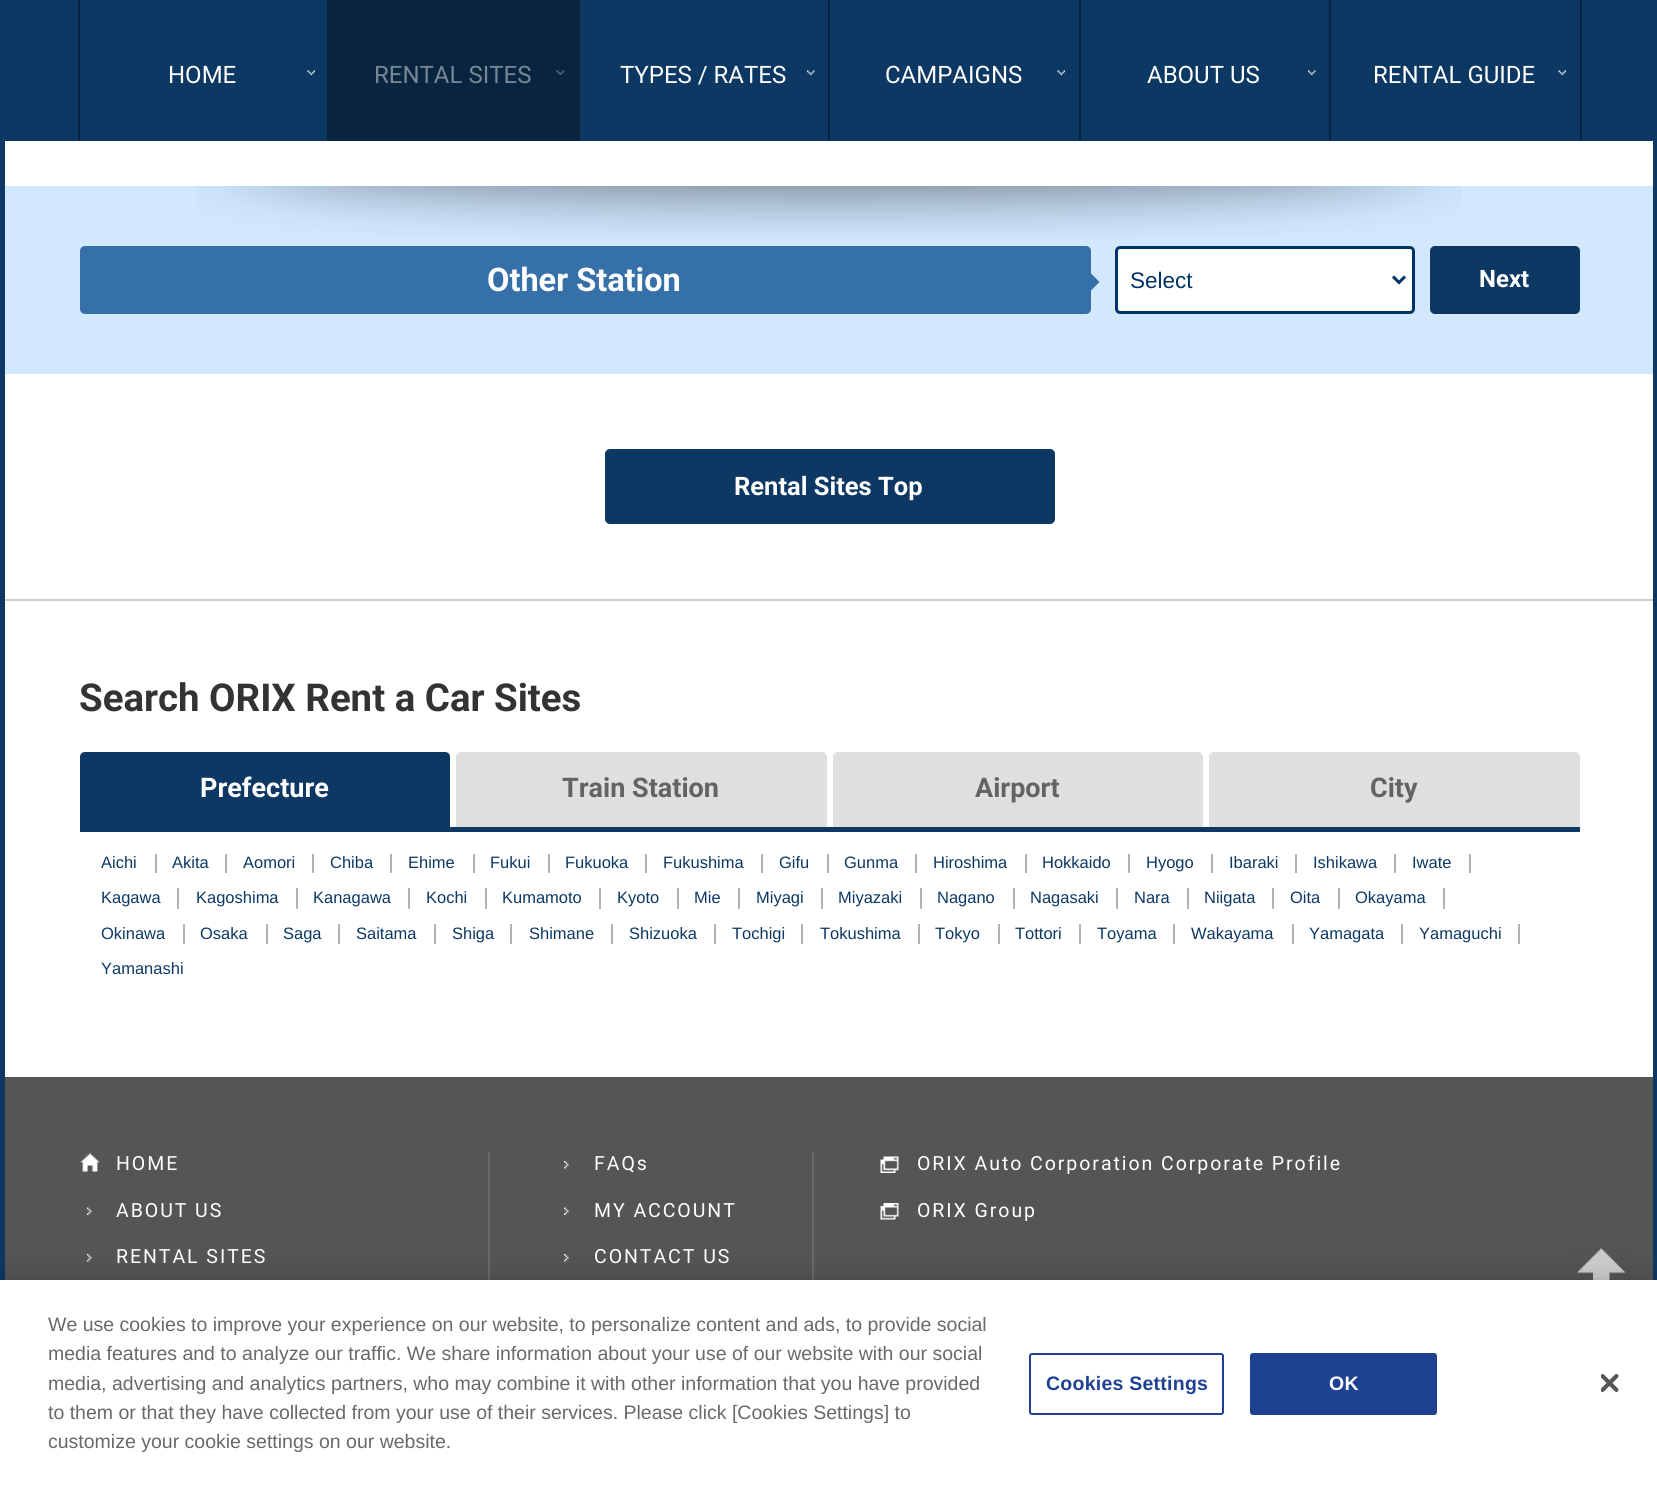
#include <cairo.h>
#include <math.h>
#include <stddef.h>

static cairo_t *ctx;

static void use_color(int r, int g, int b) {
    cairo_set_source_rgb(ctx, r / 255.0, g / 255.0, b / 255.0);
}

static void spaced_text(double x, double y, const char *s, double letter, double word) {
    cairo_move_to(ctx, x, y);
    while (*s) {
        char ch[5] = {0};
        int n = 0;
        do ch[n++] = *s++; while ((*s & 0xC0) == 0x80);
        cairo_show_text(ctx, ch);
        cairo_rel_move_to(ctx, letter + word * (*ch == ' '), 0);
    }
}

static void round_rect(double x, double y, double w, double h, double r) {
    cairo_new_sub_path(ctx);
    cairo_arc(ctx, x + w - r, y + h - r, r, 0, M_PI / 2);
    cairo_arc(ctx, x + r, y + h - r, r, M_PI / 2, M_PI);
    cairo_arc(ctx, x + r, y + r, r, M_PI, 1.5 * M_PI);
    cairo_arc(ctx, x + w - r, y + r, r, 1.5 * M_PI, 2 * M_PI);
    cairo_close_path(ctx);
}

static void shadow(double x, double y, double w, double h, double r, double blur, double alpha) {
    cairo_push_group_with_content(ctx, CAIRO_CONTENT_ALPHA);
    cairo_set_operator(ctx, CAIRO_OPERATOR_SOURCE);
    for (int i = 15; i >= -15 && fmin(w, h) + blur * i / 3 > 0; i -= 2) {
        double e = blur * i / 6;
        cairo_set_source_rgba(ctx, 0, 0, 0, alpha * erfc((i - 1) / 8.5) / 2);
        round_rect(x - e, y - e, w + 2 * e, h + 2 * e, fmax(0, fmin(r + e + blur * .6, fmin(w, h) / 2 + e)));
        cairo_fill(ctx);
    }
    cairo_pattern_t *soft = cairo_pop_group(ctx);
    cairo_mask(ctx, soft);
    cairo_pattern_destroy(soft);
}

static void picture(const char *path, double x, double y, double w, double h) {
    cairo_surface_t *image = cairo_image_surface_create_from_png(path);
    cairo_save(ctx);
    cairo_set_source_surface(ctx, image, x, y);
    cairo_rectangle(ctx, x, y, w, h);
    cairo_fill(ctx);
    cairo_restore(ctx);
    cairo_surface_destroy(image);
}

int main(void) {
    cairo_surface_t *surface = cairo_image_surface_create(CAIRO_FORMAT_RGB24, 1657, 1491);
    ctx = cairo_create(surface);
    cairo_font_options_t *options = cairo_font_options_create();
    cairo_font_options_set_hint_metrics(options, CAIRO_HINT_METRICS_OFF);
    cairo_font_options_set_hint_style(options, CAIRO_HINT_STYLE_NONE);
    cairo_set_font_options(ctx, options);
    cairo_set_miter_limit(ctx, 4);
    use_color(255, 255, 255);
    cairo_paint(ctx);
    use_color(13, 56, 99);
    cairo_rectangle(ctx, 1653, 141, 4, 1139);
    cairo_fill(ctx);
    cairo_rectangle(ctx, 0, 141, 5, 1139);
    cairo_fill(ctx);
    cairo_rectangle(ctx, 0, 0, 1657, 141);
    cairo_fill(ctx);
    picture("img1.png", 307, 70, 8, 5);
    use_color(8, 36, 63);
    cairo_rectangle(ctx, 78, 0, 2, 141);
    cairo_fill(ctx);
    cairo_select_font_face(ctx, "Roboto", CAIRO_FONT_SLANT_NORMAL, CAIRO_FONT_WEIGHT_NORMAL);
    cairo_set_font_size(ctx, 24);
    use_color(255, 255, 255);
    cairo_move_to(ctx, 168, 83);
    cairo_show_text(ctx, "HOME");
    use_color(8, 36, 63);
    cairo_rectangle(ctx, 327, 0, 253, 141);
    cairo_fill(ctx);
    picture("img2.png", 556, 70, 8, 5);
    use_color(119, 135, 150);
    cairo_move_to(ctx, 374, 83);
    cairo_show_text(ctx, "RENTAL SITES");
    picture("img3.png", 807, 70, 8, 5);
    use_color(255, 255, 255);
    cairo_move_to(ctx, 620, 83);
    cairo_show_text(ctx, "TYPES / RATES");
    picture("img1.png", 1057, 70, 8, 5);
    use_color(8, 36, 63);
    cairo_rectangle(ctx, 828, 0, 2, 141);
    cairo_fill(ctx);
    use_color(255, 255, 255);
    cairo_move_to(ctx, 885, 83);
    cairo_show_text(ctx, "CAMPAIGNS");
    picture("img3.png", 1308, 70, 8, 5);
    use_color(8, 36, 63);
    cairo_rectangle(ctx, 1079, 0, 2, 141);
    cairo_fill(ctx);
    use_color(255, 255, 255);
    cairo_move_to(ctx, 1147, 83);
    cairo_show_text(ctx, "ABOUT US");
    picture("img1.png", 1558, 70, 8, 5);
    use_color(8, 36, 63);
    cairo_rectangle(ctx, 1580, 0, 2, 141);
    cairo_fill(ctx);
    cairo_rectangle(ctx, 1329, 0, 2, 141);
    cairo_fill(ctx);
    use_color(255, 255, 255);
    cairo_move_to(ctx, 1373, 83);
    cairo_show_text(ctx, "RENTAL GUIDE");
    use_color(209, 232, 255);
    cairo_rectangle(ctx, 5, 186, 1648, 188);
    cairo_fill(ctx);
    picture("img4.png", 197, 186, 1265, 53);
    use_color(53, 112, 169);
    round_rect(80, 246, 1011, 68, 5);
    cairo_fill(ctx);
    cairo_select_font_face(ctx, "Roboto", CAIRO_FONT_SLANT_NORMAL, CAIRO_FONT_WEIGHT_BOLD);
    cairo_set_font_size(ctx, 32.5);
    use_color(255, 255, 255);
    cairo_move_to(ctx, 487, 291);
    cairo_show_text(ctx, "Other Station");
    use_color(53, 112, 169);
    cairo_new_path(ctx);
    cairo_move_to(ctx, 1089, 292.5);
    cairo_line_to(ctx, 1089, 271.5);
    cairo_line_to(ctx, 1099.5, 282);
    cairo_close_path(ctx);
    cairo_fill(ctx);
    use_color(255, 255, 255);
    round_rect(1116.5, 247.5, 297, 65, 3.5);
    cairo_fill_preserve(ctx);
    use_color(1, 52, 102);
    cairo_set_line_width(ctx, 3);
    cairo_stroke(ctx);
    cairo_new_path(ctx);
    cairo_move_to(ctx, 1393, 276.5);
    cairo_line_to(ctx, 1399, 282.5);
    cairo_line_to(ctx, 1405, 276.5);
    use_color(0, 51, 102);
    cairo_stroke(ctx);
    cairo_select_font_face(ctx, "Liberation Sans", CAIRO_FONT_SLANT_NORMAL, CAIRO_FONT_WEIGHT_NORMAL);
    cairo_set_font_size(ctx, 22.5);
    cairo_move_to(ctx, 1130, 288);
    cairo_show_text(ctx, "Select");
    use_color(13, 56, 99);
    round_rect(1430, 246, 150, 68, 5);
    cairo_fill(ctx);
    cairo_select_font_face(ctx, "Roboto", CAIRO_FONT_SLANT_NORMAL, CAIRO_FONT_WEIGHT_BOLD);
    cairo_set_font_size(ctx, 24);
    use_color(255, 255, 255);
    cairo_move_to(ctx, 1479, 287);
    cairo_show_text(ctx, "Next");
    use_color(13, 56, 99);
    round_rect(605, 449, 450, 75, 5);
    cairo_fill(ctx);
    cairo_set_font_size(ctx, 25.5);
    use_color(255, 255, 255);
    cairo_move_to(ctx, 734, 495);
    cairo_show_text(ctx, "Rental Sites Top");
    use_color(204, 204, 204);
    cairo_rectangle(ctx, 5, 599, 1648, 2);
    cairo_fill(ctx);
    cairo_set_font_size(ctx, 38.4);
    use_color(51, 51, 51);
    cairo_move_to(ctx, 79, 711);
    cairo_show_text(ctx, "Search ORIX Rent a Car Sites");
    use_color(13, 56, 99);
    cairo_rectangle(ctx, 80, 827, 1500, 5);
    cairo_fill(ctx);
    cairo_new_path(ctx);
    cairo_move_to(ctx, 85, 752);
    cairo_line_to(ctx, 445, 752);
    cairo_curve_to(ctx, 448, 752, 450, 754, 450, 757);
    cairo_line_to(ctx, 450, 827);
    cairo_line_to(ctx, 80, 827);
    cairo_line_to(ctx, 80, 757);
    cairo_curve_to(ctx, 80, 754, 82, 752, 85, 752);
    cairo_close_path(ctx);
    cairo_fill(ctx);
    cairo_set_font_size(ctx, 27);
    use_color(255, 255, 255);
    cairo_move_to(ctx, 200, 797);
    cairo_show_text(ctx, "Prefecture");
    use_color(223, 223, 223);
    cairo_new_path(ctx);
    cairo_move_to(ctx, 461, 752);
    cairo_line_to(ctx, 822, 752);
    cairo_curve_to(ctx, 825, 752, 827, 754, 827, 757);
    cairo_line_to(ctx, 827, 827);
    cairo_line_to(ctx, 456, 827);
    cairo_line_to(ctx, 456, 757);
    cairo_curve_to(ctx, 456, 754, 458, 752, 461, 752);
    cairo_close_path(ctx);
    cairo_fill(ctx);
    use_color(99, 99, 99);
    cairo_move_to(ctx, 562, 797);
    cairo_show_text(ctx, "Train Station");
    use_color(223, 223, 223);
    cairo_new_path(ctx);
    cairo_move_to(ctx, 838, 752);
    cairo_line_to(ctx, 1198, 752);
    cairo_curve_to(ctx, 1201, 752, 1203, 754, 1203, 757);
    cairo_line_to(ctx, 1203, 827);
    cairo_line_to(ctx, 833, 827);
    cairo_line_to(ctx, 833, 757);
    cairo_curve_to(ctx, 833, 754, 835, 752, 838, 752);
    cairo_close_path(ctx);
    cairo_fill(ctx);
    use_color(99, 99, 99);
    cairo_move_to(ctx, 975, 797);
    cairo_show_text(ctx, "Airport");
    use_color(223, 223, 223);
    cairo_new_path(ctx);
    cairo_move_to(ctx, 1214, 752);
    cairo_line_to(ctx, 1575, 752);
    cairo_curve_to(ctx, 1578, 752, 1580, 754, 1580, 757);
    cairo_line_to(ctx, 1580, 827);
    cairo_line_to(ctx, 1209, 827);
    cairo_line_to(ctx, 1209, 757);
    cairo_curve_to(ctx, 1209, 754, 1211, 752, 1214, 752);
    cairo_close_path(ctx);
    cairo_fill(ctx);
    use_color(99, 99, 99);
    cairo_move_to(ctx, 1370, 797);
    cairo_show_text(ctx, "City");
    use_color(178, 178, 178);
    cairo_rectangle(ctx, 155, 854, 2, 19);
    cairo_fill(ctx);
    cairo_select_font_face(ctx, "Liberation Sans", CAIRO_FONT_SLANT_NORMAL, CAIRO_FONT_WEIGHT_NORMAL);
    cairo_set_font_size(ctx, 16.5);
    use_color(12, 56, 99);
    cairo_move_to(ctx, 101, 868);
    cairo_show_text(ctx, "Aichi");
    use_color(178, 178, 178);
    cairo_rectangle(ctx, 225, 854, 2, 19);
    cairo_fill(ctx);
    use_color(12, 56, 99);
    cairo_move_to(ctx, 172, 868);
    cairo_show_text(ctx, "Akita");
    use_color(178, 178, 178);
    cairo_rectangle(ctx, 312, 854, 2, 19);
    cairo_fill(ctx);
    use_color(12, 56, 99);
    cairo_move_to(ctx, 243, 868);
    cairo_show_text(ctx, "Aomori");
    use_color(178, 178, 178);
    cairo_rectangle(ctx, 390, 854, 2, 19);
    cairo_fill(ctx);
    use_color(12, 56, 99);
    cairo_move_to(ctx, 330, 868);
    cairo_show_text(ctx, "Chiba");
    use_color(178, 178, 178);
    cairo_rectangle(ctx, 473, 854, 2, 19);
    cairo_fill(ctx);
    use_color(12, 56, 99);
    cairo_move_to(ctx, 408, 868);
    cairo_show_text(ctx, "Ehime");
    use_color(178, 178, 178);
    cairo_rectangle(ctx, 548, 854, 2, 19);
    cairo_fill(ctx);
    use_color(12, 56, 99);
    cairo_move_to(ctx, 490, 868);
    cairo_show_text(ctx, "Fukui");
    use_color(178, 178, 178);
    cairo_rectangle(ctx, 645, 854, 2, 19);
    cairo_fill(ctx);
    use_color(12, 56, 99);
    cairo_move_to(ctx, 565, 868);
    cairo_show_text(ctx, "Fukuoka");
    use_color(178, 178, 178);
    cairo_rectangle(ctx, 761, 854, 2, 19);
    cairo_fill(ctx);
    use_color(12, 56, 99);
    cairo_move_to(ctx, 663, 868);
    cairo_show_text(ctx, "Fukushima");
    use_color(178, 178, 178);
    cairo_rectangle(ctx, 827, 854, 2, 19);
    cairo_fill(ctx);
    use_color(12, 56, 99);
    cairo_move_to(ctx, 779, 868);
    cairo_show_text(ctx, "Gifu");
    use_color(178, 178, 178);
    cairo_rectangle(ctx, 915, 854, 2, 19);
    cairo_fill(ctx);
    use_color(12, 56, 99);
    cairo_move_to(ctx, 844, 868);
    cairo_show_text(ctx, "Gunma");
    use_color(178, 178, 178);
    cairo_rectangle(ctx, 1025, 854, 2, 19);
    cairo_fill(ctx);
    use_color(12, 56, 99);
    cairo_move_to(ctx, 933, 868);
    cairo_show_text(ctx, "Hiroshima");
    use_color(178, 178, 178);
    cairo_rectangle(ctx, 1128, 854, 2, 19);
    cairo_fill(ctx);
    use_color(12, 56, 99);
    cairo_move_to(ctx, 1042, 868);
    cairo_show_text(ctx, "Hokkaido");
    use_color(178, 178, 178);
    cairo_rectangle(ctx, 1211, 854, 2, 19);
    cairo_fill(ctx);
    use_color(12, 56, 99);
    cairo_move_to(ctx, 1146, 868);
    cairo_show_text(ctx, "Hyogo");
    use_color(178, 178, 178);
    cairo_rectangle(ctx, 1295, 854, 2, 19);
    cairo_fill(ctx);
    use_color(12, 56, 99);
    cairo_move_to(ctx, 1229, 868);
    cairo_show_text(ctx, "Ibaraki");
    use_color(178, 178, 178);
    cairo_rectangle(ctx, 1394, 854, 2, 19);
    cairo_fill(ctx);
    use_color(12, 56, 99);
    cairo_move_to(ctx, 1313, 868);
    cairo_show_text(ctx, "Ishikawa");
    use_color(178, 178, 178);
    cairo_rectangle(ctx, 1469, 854, 2, 19);
    cairo_fill(ctx);
    use_color(12, 56, 99);
    cairo_move_to(ctx, 1412, 868);
    cairo_show_text(ctx, "Iwate");
    use_color(178, 178, 178);
    cairo_rectangle(ctx, 177, 888, 2, 21);
    cairo_fill(ctx);
    use_color(12, 56, 99);
    cairo_move_to(ctx, 101, 903);
    cairo_show_text(ctx, "Kagawa");
    use_color(178, 178, 178);
    cairo_rectangle(ctx, 296, 888, 2, 21);
    cairo_fill(ctx);
    use_color(12, 56, 99);
    cairo_move_to(ctx, 196, 903);
    cairo_show_text(ctx, "Kagoshima");
    use_color(178, 178, 178);
    cairo_rectangle(ctx, 408, 888, 2, 21);
    cairo_fill(ctx);
    use_color(12, 56, 99);
    cairo_move_to(ctx, 313, 903);
    cairo_show_text(ctx, "Kanagawa");
    use_color(178, 178, 178);
    cairo_rectangle(ctx, 485, 888, 2, 21);
    cairo_fill(ctx);
    use_color(12, 56, 99);
    cairo_move_to(ctx, 426, 903);
    cairo_show_text(ctx, "Kochi");
    use_color(178, 178, 178);
    cairo_rectangle(ctx, 599, 888, 2, 21);
    cairo_fill(ctx);
    use_color(12, 56, 99);
    cairo_move_to(ctx, 502, 903);
    cairo_show_text(ctx, "Kumamoto");
    use_color(178, 178, 178);
    cairo_rectangle(ctx, 677, 888, 2, 21);
    cairo_fill(ctx);
    use_color(12, 56, 99);
    cairo_move_to(ctx, 617, 903);
    cairo_show_text(ctx, "Kyoto");
    use_color(178, 178, 178);
    cairo_rectangle(ctx, 738, 888, 2, 21);
    cairo_fill(ctx);
    use_color(12, 56, 99);
    cairo_move_to(ctx, 694, 903);
    cairo_show_text(ctx, "Mie");
    use_color(178, 178, 178);
    cairo_rectangle(ctx, 821, 888, 2, 21);
    cairo_fill(ctx);
    use_color(12, 56, 99);
    cairo_move_to(ctx, 756, 903);
    cairo_show_text(ctx, "Miyagi");
    use_color(178, 178, 178);
    cairo_rectangle(ctx, 920, 888, 2, 21);
    cairo_fill(ctx);
    use_color(12, 56, 99);
    cairo_move_to(ctx, 838, 903);
    cairo_show_text(ctx, "Miyazaki");
    use_color(178, 178, 178);
    cairo_rectangle(ctx, 1013, 888, 2, 21);
    cairo_fill(ctx);
    use_color(12, 56, 99);
    cairo_move_to(ctx, 937, 903);
    cairo_show_text(ctx, "Nagano");
    use_color(178, 178, 178);
    cairo_rectangle(ctx, 1116, 888, 2, 21);
    cairo_fill(ctx);
    use_color(12, 56, 99);
    cairo_move_to(ctx, 1030, 903);
    cairo_show_text(ctx, "Nagasaki");
    use_color(178, 178, 178);
    cairo_rectangle(ctx, 1187, 888, 2, 21);
    cairo_fill(ctx);
    use_color(12, 56, 99);
    cairo_move_to(ctx, 1134, 903);
    cairo_show_text(ctx, "Nara");
    use_color(178, 178, 178);
    cairo_rectangle(ctx, 1272, 888, 2, 21);
    cairo_fill(ctx);
    use_color(12, 56, 99);
    cairo_move_to(ctx, 1204, 903);
    cairo_show_text(ctx, "Niigata");
    use_color(178, 178, 178);
    cairo_rectangle(ctx, 1338, 888, 2, 21);
    cairo_fill(ctx);
    use_color(12, 56, 99);
    cairo_move_to(ctx, 1290, 903);
    cairo_show_text(ctx, "Oita");
    use_color(178, 178, 178);
    cairo_rectangle(ctx, 1443, 888, 2, 21);
    cairo_fill(ctx);
    use_color(12, 56, 99);
    cairo_move_to(ctx, 1355, 903);
    cairo_show_text(ctx, "Okayama");
    use_color(178, 178, 178);
    cairo_rectangle(ctx, 183, 924, 2, 20);
    cairo_fill(ctx);
    use_color(12, 56, 99);
    cairo_move_to(ctx, 101, 939);
    cairo_show_text(ctx, "Okinawa");
    use_color(178, 178, 178);
    cairo_rectangle(ctx, 266, 924, 2, 20);
    cairo_fill(ctx);
    use_color(12, 56, 99);
    cairo_move_to(ctx, 200, 939);
    cairo_show_text(ctx, "Osaka");
    use_color(178, 178, 178);
    cairo_rectangle(ctx, 338, 924, 2, 20);
    cairo_fill(ctx);
    use_color(12, 56, 99);
    cairo_move_to(ctx, 283, 939);
    cairo_show_text(ctx, "Saga");
    use_color(178, 178, 178);
    cairo_rectangle(ctx, 434, 924, 2, 20);
    cairo_fill(ctx);
    use_color(12, 56, 99);
    cairo_move_to(ctx, 356, 939);
    cairo_show_text(ctx, "Saitama");
    use_color(178, 178, 178);
    cairo_rectangle(ctx, 510, 924, 2, 20);
    cairo_fill(ctx);
    use_color(12, 56, 99);
    cairo_move_to(ctx, 452, 939);
    cairo_show_text(ctx, "Shiga");
    use_color(178, 178, 178);
    cairo_rectangle(ctx, 611, 924, 2, 20);
    cairo_fill(ctx);
    use_color(12, 56, 99);
    cairo_move_to(ctx, 529, 939);
    cairo_show_text(ctx, "Shimane");
    use_color(178, 178, 178);
    cairo_rectangle(ctx, 714, 924, 2, 20);
    cairo_fill(ctx);
    use_color(12, 56, 99);
    cairo_move_to(ctx, 629, 939);
    cairo_show_text(ctx, "Shizuoka");
    use_color(178, 178, 178);
    cairo_rectangle(ctx, 801, 924, 2, 20);
    cairo_fill(ctx);
    use_color(12, 56, 99);
    cairo_move_to(ctx, 732, 939);
    cairo_show_text(ctx, "Tochigi");
    use_color(178, 178, 178);
    cairo_rectangle(ctx, 918, 924, 2, 20);
    cairo_fill(ctx);
    use_color(12, 56, 99);
    cairo_move_to(ctx, 820, 939);
    cairo_show_text(ctx, "Tokushima");
    use_color(178, 178, 178);
    cairo_rectangle(ctx, 998, 924, 2, 20);
    cairo_fill(ctx);
    use_color(12, 56, 99);
    cairo_move_to(ctx, 935, 939);
    cairo_show_text(ctx, "Tokyo");
    use_color(178, 178, 178);
    cairo_rectangle(ctx, 1079, 924, 2, 20);
    cairo_fill(ctx);
    use_color(12, 56, 99);
    cairo_move_to(ctx, 1015, 939);
    cairo_show_text(ctx, "Tottori");
    use_color(178, 178, 178);
    cairo_rectangle(ctx, 1173, 924, 2, 20);
    cairo_fill(ctx);
    use_color(12, 56, 99);
    cairo_move_to(ctx, 1097, 939);
    cairo_show_text(ctx, "Toyama");
    use_color(178, 178, 178);
    cairo_rectangle(ctx, 1292, 924, 2, 20);
    cairo_fill(ctx);
    use_color(12, 56, 99);
    cairo_move_to(ctx, 1191, 939);
    cairo_show_text(ctx, "Wakayama");
    use_color(178, 178, 178);
    cairo_rectangle(ctx, 1401, 924, 2, 20);
    cairo_fill(ctx);
    use_color(12, 56, 99);
    cairo_move_to(ctx, 1309, 939);
    cairo_show_text(ctx, "Yamagata");
    use_color(178, 178, 178);
    cairo_rectangle(ctx, 1518, 924, 2, 20);
    cairo_fill(ctx);
    use_color(12, 56, 99);
    cairo_move_to(ctx, 1419, 939);
    cairo_show_text(ctx, "Yamaguchi");
    cairo_move_to(ctx, 101, 974);
    cairo_show_text(ctx, "Yamanashi");
    use_color(85, 85, 85);
    cairo_rectangle(ctx, 5, 1077, 1648, 203);
    cairo_fill(ctx);
    use_color(106, 106, 106);
    cairo_rectangle(ctx, 488, 1152, 2, 128);
    cairo_fill(ctx);
    picture("img5.png", 80, 1153, 20, 19);
    cairo_select_font_face(ctx, "Roboto", CAIRO_FONT_SLANT_NORMAL, CAIRO_FONT_WEIGHT_NORMAL);
    cairo_set_font_size(ctx, 19.5);
    use_color(255, 255, 255);
    spaced_text(116, 1170, "HOME", 1.95, 0);
    picture("img6.png", 87, 1207, 5, 8);
    spaced_text(116, 1217, "ABOUT US", 1.95, 0);
    picture("img7.png", 87, 1254, 5, 8);
    spaced_text(116, 1263, "RENTAL SITES", 1.95, 0);
    use_color(106, 106, 106);
    cairo_rectangle(ctx, 812, 1152, 2, 128);
    cairo_fill(ctx);
    picture("img8.png", 564, 1161, 5, 8);
    use_color(255, 255, 255);
    spaced_text(594, 1170, "FAQs", 1.95, 0);
    picture("img9.png", 564, 1207, 5, 8);
    spaced_text(594, 1217, "MY ACCOUNT", 1.95, 0);
    picture("img8.png", 564, 1254, 5, 8);
    spaced_text(594, 1263, "CONTACT US", 1.95, 0);
    picture("img10.png", 880, 1156, 19, 17);
    spaced_text(917, 1170, "ORIX Auto Corporation Corporate Profile", 1.95, 0);
    picture("img11.png", 880, 1203, 19, 17);
    spaced_text(917, 1217, "ORIX Group", 1.95, 0);
    picture("img12.png", 1566, 1248, 69, 32);
    use_color(0, 0, 0);
    shadow(0, 1280, 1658, 211, 0, 13.5, 0.2);
    use_color(255, 255, 255);
    cairo_rectangle(ctx, 0, 1280, 1657, 211);
    cairo_fill(ctx);
    cairo_select_font_face(ctx, "Liberation Sans", CAIRO_FONT_SLANT_NORMAL, CAIRO_FONT_WEIGHT_NORMAL);
    use_color(105, 105, 105);
    cairo_move_to(ctx, 48, 1331);
    cairo_show_text(ctx, "We use cookies to improve your experience on our website, to personalize content and ads, to provide social");
    cairo_move_to(ctx, 48, 1360);
    cairo_show_text(ctx, "media features and to analyze our traffic. We share information about your use of our website with our social");
    cairo_move_to(ctx, 48, 1390);
    cairo_show_text(ctx, "media, advertising and analytics partners, who may combine it with other information that you have provided");
    cairo_move_to(ctx, 48, 1419);
    cairo_show_text(ctx, "to them or that they have collected from your use of their services. Please click [Cookies Settings] to");
    cairo_move_to(ctx, 48, 1448);
    cairo_show_text(ctx, "customize your cookie settings on our website.");
    round_rect(1030, 1354, 193, 60, 2);
    use_color(30, 65, 145);
    cairo_set_line_width(ctx, 2);
    cairo_stroke(ctx);
    cairo_select_font_face(ctx, "Liberation Sans", CAIRO_FONT_SLANT_NORMAL, CAIRO_FONT_WEIGHT_BOLD);
    spaced_text(1046, 1390, "Cookies Settings", 0.25, 0);
    round_rect(1251, 1354, 185, 60, 2);
    cairo_fill_preserve(ctx);
    cairo_stroke(ctx);
    use_color(255, 255, 255);
    spaced_text(1329, 1390, "OK", 0.25, 0);
    picture("img13.png", 1601, 1374, 18, 18);
    cairo_surface_write_to_png(surface, "result.png");
    cairo_font_options_destroy(options);
    cairo_destroy(ctx);
    cairo_surface_destroy(surface);
    return 0;
}
